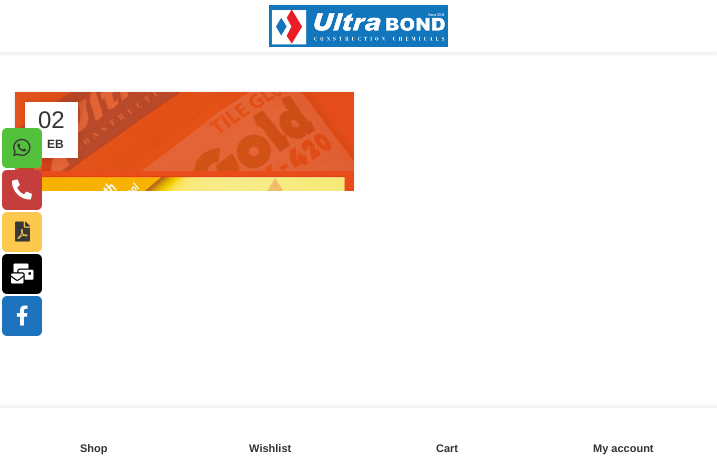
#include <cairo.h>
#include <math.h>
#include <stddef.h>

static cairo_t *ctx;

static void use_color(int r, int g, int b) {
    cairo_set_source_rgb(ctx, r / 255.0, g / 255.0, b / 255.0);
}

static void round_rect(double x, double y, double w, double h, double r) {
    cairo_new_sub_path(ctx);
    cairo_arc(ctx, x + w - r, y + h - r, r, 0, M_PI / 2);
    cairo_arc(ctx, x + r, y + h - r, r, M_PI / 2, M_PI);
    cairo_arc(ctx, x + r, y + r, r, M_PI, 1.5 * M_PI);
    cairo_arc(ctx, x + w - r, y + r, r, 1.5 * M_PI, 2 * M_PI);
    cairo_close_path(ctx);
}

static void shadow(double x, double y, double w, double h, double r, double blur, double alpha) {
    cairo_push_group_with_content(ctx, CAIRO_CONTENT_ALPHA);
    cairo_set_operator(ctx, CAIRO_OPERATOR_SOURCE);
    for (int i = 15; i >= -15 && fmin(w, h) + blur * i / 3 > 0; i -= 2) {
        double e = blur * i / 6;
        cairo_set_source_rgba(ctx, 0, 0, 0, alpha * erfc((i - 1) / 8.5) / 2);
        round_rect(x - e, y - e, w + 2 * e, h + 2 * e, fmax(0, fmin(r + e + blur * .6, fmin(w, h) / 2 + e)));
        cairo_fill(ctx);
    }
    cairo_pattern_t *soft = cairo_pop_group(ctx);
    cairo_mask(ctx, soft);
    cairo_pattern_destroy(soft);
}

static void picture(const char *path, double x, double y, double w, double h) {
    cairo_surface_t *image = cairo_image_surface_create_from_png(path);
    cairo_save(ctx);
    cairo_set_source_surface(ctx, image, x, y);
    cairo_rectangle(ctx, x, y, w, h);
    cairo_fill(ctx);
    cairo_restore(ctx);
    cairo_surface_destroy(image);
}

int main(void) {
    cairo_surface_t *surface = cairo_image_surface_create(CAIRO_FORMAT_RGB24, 717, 463);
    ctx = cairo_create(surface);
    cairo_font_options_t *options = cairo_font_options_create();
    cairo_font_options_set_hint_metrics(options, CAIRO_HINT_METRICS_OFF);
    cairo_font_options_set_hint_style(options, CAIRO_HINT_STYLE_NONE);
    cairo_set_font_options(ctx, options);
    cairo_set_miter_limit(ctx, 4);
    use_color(255, 255, 255);
    cairo_paint(ctx);
    cairo_save(ctx);
    cairo_rectangle(ctx, 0, 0, 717, 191);
    cairo_clip(ctx);
    use_color(0, 0, 0);
    shadow(15, 92, 339, 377, 0, 2, 0.12);
    cairo_restore(ctx);
    picture("img7.png", 15, 92, 339, 99);
    use_color(0, 0, 0);
    shadow(25, 102, 53, 56, 0, 4.5, 0.1);
    use_color(255, 255, 255);
    cairo_rectangle(ctx, 25, 102, 53, 56);
    cairo_fill(ctx);
    cairo_select_font_face(ctx, "Liberation Sans", CAIRO_FONT_SLANT_NORMAL, CAIRO_FONT_WEIGHT_NORMAL);
    cairo_set_font_size(ctx, 24);
    use_color(51, 51, 51);
    cairo_move_to(ctx, 38, 128);
    cairo_show_text(ctx, "02");
    use_color(84, 193, 60);
    round_rect(2, 128, 40, 40, 5);
    cairo_fill(ctx);
    picture("img1.png", 13, 138, 18, 19);
    use_color(198, 61, 61);
    round_rect(2, 170, 40, 40, 5);
    cairo_fill(ctx);
    picture("img2.png", 12, 179, 20, 21);
    use_color(252, 200, 78);
    round_rect(2, 212, 40, 40, 5);
    cairo_fill(ctx);
    picture("img3.png", 15, 221, 15, 21);
    use_color(0, 0, 0);
    round_rect(2, 254, 40, 40, 5);
    cairo_fill(ctx);
    picture("img4.png", 11, 263, 23, 21);
    use_color(30, 115, 190);
    round_rect(2, 296, 40, 40, 5);
    cairo_fill(ctx);
    picture("img5.png", 16, 305, 12, 21);
    cairo_save(ctx);
    cairo_rectangle(ctx, 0, 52, 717, 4);
    cairo_clip(ctx);
    use_color(0, 0, 0);
    shadow(0, 1, 717, 52, 0, 4, 0.1);
    cairo_restore(ctx);
    picture("img6.png", 269, 5, 179, 42);
    cairo_select_font_face(ctx, "Liberation Sans", CAIRO_FONT_SLANT_NORMAL, CAIRO_FONT_WEIGHT_BOLD);
    cairo_set_font_size(ctx, 12);
    use_color(51, 51, 51);
    cairo_move_to(ctx, 47, 148);
    cairo_show_text(ctx, "EB");
    use_color(0, 0, 0);
    shadow(0, 408, 717, 55, 0, 4.5, 0.12);
    use_color(255, 255, 255);
    cairo_rectangle(ctx, 0, 408, 717, 55);
    cairo_fill(ctx);
    cairo_set_font_size(ctx, 11);
    use_color(51, 51, 51);
    cairo_move_to(ctx, 80, 452);
    cairo_show_text(ctx, "Shop");
    cairo_move_to(ctx, 249, 452);
    cairo_show_text(ctx, "Wishlist");
    cairo_move_to(ctx, 436, 452);
    cairo_show_text(ctx, "Cart");
    cairo_move_to(ctx, 593, 452);
    cairo_show_text(ctx, "My account");
    cairo_surface_write_to_png(surface, "result.png");
    cairo_font_options_destroy(options);
    cairo_destroy(ctx);
    cairo_surface_destroy(surface);
    return 0;
}
